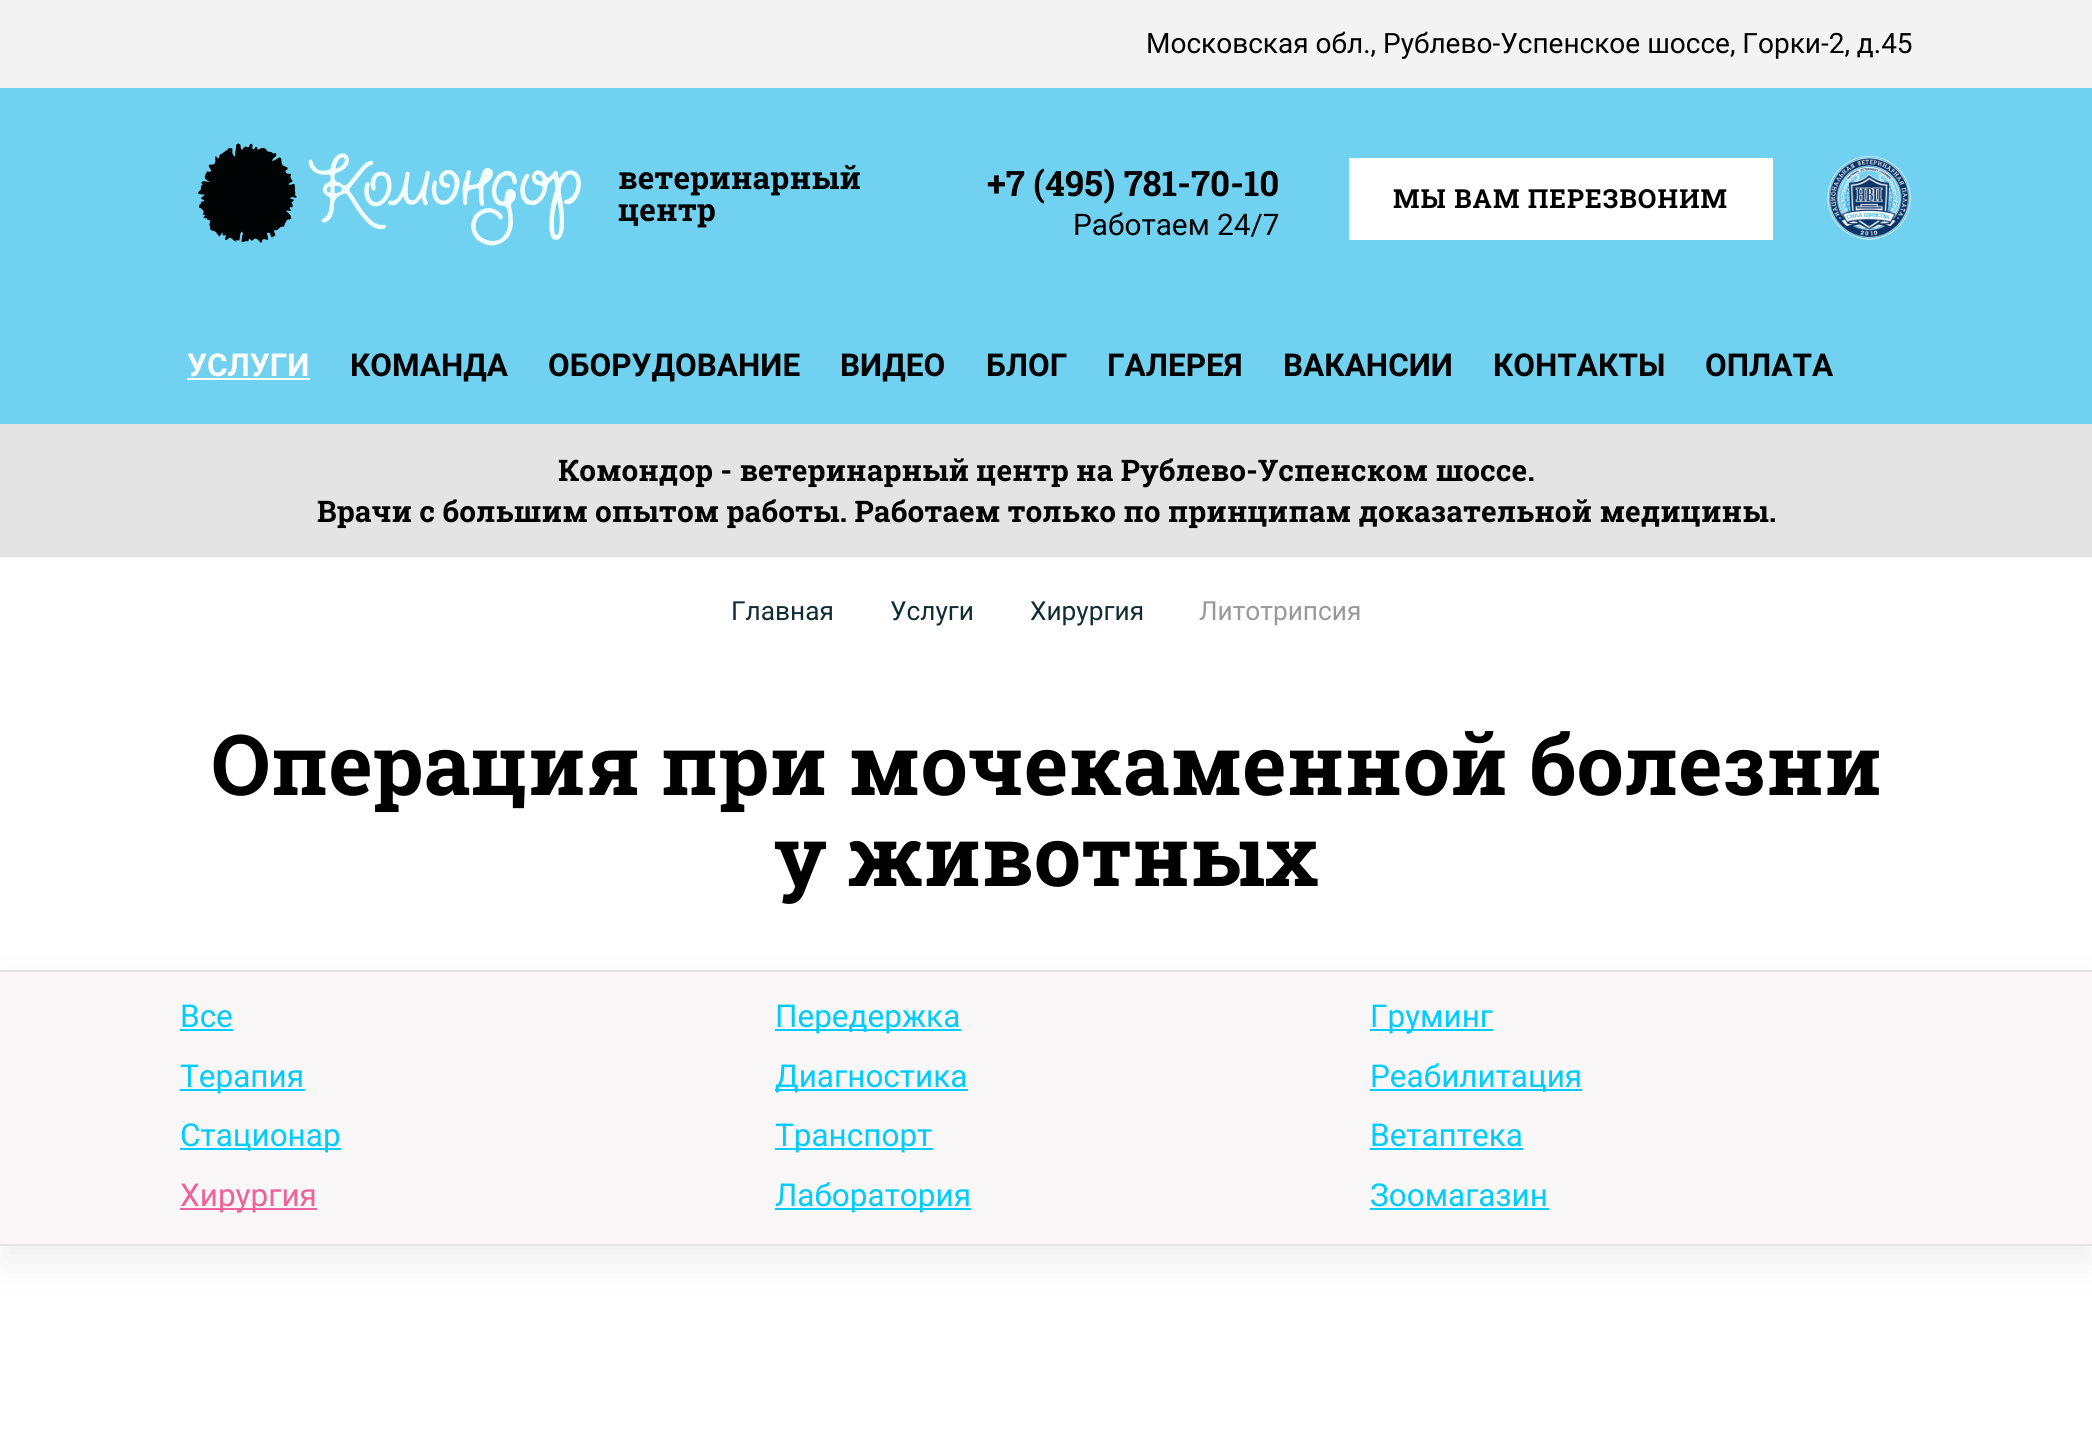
#include <cairo.h>
#include <math.h>
#include <stddef.h>

static cairo_t *ctx;

static void use_color(int r, int g, int b) {
    cairo_set_source_rgb(ctx, r / 255.0, g / 255.0, b / 255.0);
}

static void spaced_text(double x, double y, const char *s, double letter, double word) {
    cairo_move_to(ctx, x, y);
    while (*s) {
        char ch[5] = {0};
        int n = 0;
        do ch[n++] = *s++; while ((*s & 0xC0) == 0x80);
        cairo_show_text(ctx, ch);
        cairo_rel_move_to(ctx, letter + word * (*ch == ' '), 0);
    }
}

static void round_rect(double x, double y, double w, double h, double r) {
    cairo_new_sub_path(ctx);
    cairo_arc(ctx, x + w - r, y + h - r, r, 0, M_PI / 2);
    cairo_arc(ctx, x + r, y + h - r, r, M_PI / 2, M_PI);
    cairo_arc(ctx, x + r, y + r, r, M_PI, 1.5 * M_PI);
    cairo_arc(ctx, x + w - r, y + r, r, 1.5 * M_PI, 2 * M_PI);
    cairo_close_path(ctx);
}

static void shadow(double x, double y, double w, double h, double r, double blur, double alpha) {
    cairo_push_group_with_content(ctx, CAIRO_CONTENT_ALPHA);
    cairo_set_operator(ctx, CAIRO_OPERATOR_SOURCE);
    for (int i = 15; i >= -15 && fmin(w, h) + blur * i / 3 > 0; i -= 2) {
        double e = blur * i / 6;
        cairo_set_source_rgba(ctx, 0, 0, 0, alpha * erfc((i - 1) / 8.5) / 2);
        round_rect(x - e, y - e, w + 2 * e, h + 2 * e, fmax(0, fmin(r + e + blur * .6, fmin(w, h) / 2 + e)));
        cairo_fill(ctx);
    }
    cairo_pattern_t *soft = cairo_pop_group(ctx);
    cairo_mask(ctx, soft);
    cairo_pattern_destroy(soft);
}

static void picture(const char *path, double x, double y, double w, double h) {
    cairo_surface_t *image = cairo_image_surface_create_from_png(path);
    cairo_save(ctx);
    cairo_set_source_surface(ctx, image, x, y);
    cairo_rectangle(ctx, x, y, w, h);
    cairo_fill(ctx);
    cairo_restore(ctx);
    cairo_surface_destroy(image);
}

int main(void) {
    cairo_surface_t *surface = cairo_image_surface_create(CAIRO_FORMAT_RGB24, 2092, 1453);
    ctx = cairo_create(surface);
    cairo_font_options_t *options = cairo_font_options_create();
    cairo_font_options_set_hint_metrics(options, CAIRO_HINT_METRICS_OFF);
    cairo_font_options_set_hint_style(options, CAIRO_HINT_STYLE_NONE);
    cairo_set_font_options(ctx, options);
    cairo_set_miter_limit(ctx, 4);
    use_color(255, 255, 255);
    cairo_paint(ctx);
    use_color(112, 210, 240);
    cairo_rectangle(ctx, 0, 88, 2092, 336);
    cairo_fill(ctx);
    use_color(243, 243, 243);
    cairo_rectangle(ctx, 0, 0, 2092, 88);
    cairo_fill(ctx);
    cairo_select_font_face(ctx, "Roboto", CAIRO_FONT_SLANT_NORMAL, CAIRO_FONT_WEIGHT_NORMAL);
    cairo_set_font_size(ctx, 28);
    use_color(0, 0, 0);
    cairo_move_to(ctx, 1146, 53);
    cairo_show_text(ctx, "Московская обл., Рублево-Успенское шоссе, Горки-2, д.45");
    picture("img1.png", 198, 143, 383, 103);
    cairo_select_font_face(ctx, "Roboto Slab", CAIRO_FONT_SLANT_NORMAL, CAIRO_FONT_WEIGHT_BOLD);
    cairo_set_font_size(ctx, 31.5);
    cairo_move_to(ctx, 618, 189);
    cairo_show_text(ctx, "ветеринарный");
    cairo_move_to(ctx, 618, 221);
    cairo_show_text(ctx, "центр");
    cairo_set_font_size(ctx, 35);
    cairo_move_to(ctx, 987, 196);
    cairo_show_text(ctx, "+7 (495) 781-70-10");
    cairo_select_font_face(ctx, "Roboto", CAIRO_FONT_SLANT_NORMAL, CAIRO_FONT_WEIGHT_NORMAL);
    cairo_set_font_size(ctx, 29.75);
    cairo_move_to(ctx, 1073, 235);
    cairo_show_text(ctx, "Работаем 24/7");
    use_color(255, 255, 255);
    cairo_rectangle(ctx, 1349, 158, 424, 82);
    cairo_fill(ctx);
    cairo_select_font_face(ctx, "Roboto Slab", CAIRO_FONT_SLANT_NORMAL, CAIRO_FONT_WEIGHT_BOLD);
    cairo_set_font_size(ctx, 26.25);
    use_color(0, 0, 0);
    spaced_text(1393, 208, "МЫ ВАМ ПЕРЕЗВОНИМ", 1, 0);
    picture("img2.png", 1827, 155, 84, 85);
    cairo_select_font_face(ctx, "Roboto", CAIRO_FONT_SLANT_NORMAL, CAIRO_FONT_WEIGHT_BOLD);
    cairo_set_font_size(ctx, 31.5);
    use_color(255, 255, 255);
    cairo_move_to(ctx, 187, 376);
    cairo_show_text(ctx, "УСЛУГИ");
    cairo_rectangle(ctx, 187, 378, 123, 2);
    cairo_fill(ctx);
    use_color(0, 0, 0);
    cairo_move_to(ctx, 350, 376);
    cairo_show_text(ctx, "КОМАНДА");
    cairo_move_to(ctx, 548, 376);
    cairo_show_text(ctx, "ОБОРУДОВАНИЕ");
    cairo_move_to(ctx, 840, 376);
    cairo_show_text(ctx, "ВИДЕО");
    cairo_move_to(ctx, 986, 376);
    cairo_show_text(ctx, "БЛОГ");
    cairo_move_to(ctx, 1107, 376);
    cairo_show_text(ctx, "ГАЛЕРЕЯ");
    cairo_move_to(ctx, 1283, 376);
    cairo_show_text(ctx, "ВАКАНСИИ");
    cairo_move_to(ctx, 1493, 376);
    cairo_show_text(ctx, "КОНТАКТЫ");
    cairo_move_to(ctx, 1705, 376);
    cairo_show_text(ctx, "ОПЛАТА");
    use_color(228, 228, 228);
    cairo_rectangle(ctx, 0, 424, 2092, 133);
    cairo_fill(ctx);
    cairo_select_font_face(ctx, "Roboto Slab", CAIRO_FONT_SLANT_NORMAL, CAIRO_FONT_WEIGHT_BOLD);
    cairo_set_font_size(ctx, 29.75);
    use_color(0, 0, 0);
    cairo_move_to(ctx, 558, 481);
    cairo_show_text(ctx, "Комондор - ветеринарный центр на Рублево-Успенском шоссе.");
    cairo_move_to(ctx, 317, 522);
    cairo_show_text(ctx, "Врачи с большим опытом работы. Работаем только по принципам доказательной медицины.");
    cairo_select_font_face(ctx, "Roboto", CAIRO_FONT_SLANT_NORMAL, CAIRO_FONT_WEIGHT_NORMAL);
    cairo_set_font_size(ctx, 26.25);
    use_color(16, 44, 52);
    cairo_move_to(ctx, 731, 620);
    cairo_show_text(ctx, "Главная");
    cairo_move_to(ctx, 890, 620);
    cairo_show_text(ctx, "Услуги");
    cairo_move_to(ctx, 1030, 620);
    cairo_show_text(ctx, "Хирургия");
    use_color(153, 153, 153);
    cairo_move_to(ctx, 1199, 620);
    cairo_show_text(ctx, "Литотрипсия");
    cairo_select_font_face(ctx, "Roboto Slab", CAIRO_FONT_SLANT_NORMAL, CAIRO_FONT_WEIGHT_BOLD);
    cairo_set_font_size(ctx, 84);
    use_color(0, 0, 0);
    cairo_move_to(ctx, 211, 795);
    cairo_show_text(ctx, "Операция при мочекаменной болезни");
    cairo_move_to(ctx, 774, 886);
    cairo_show_text(ctx, "у животных");
    use_color(114, 114, 114);
    shadow(0, 987, 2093, 277, 0, 17.5, 0.1);
    use_color(249, 247, 247);
    cairo_rectangle(ctx, 0, 972, 2092, 272);
    cairo_fill(ctx);
    use_color(228, 228, 228);
    cairo_rectangle(ctx, 0, 970, 2092, 2);
    cairo_fill(ctx);
    cairo_rectangle(ctx, 0, 1244, 2092, 2);
    cairo_fill(ctx);
    cairo_select_font_face(ctx, "Roboto", CAIRO_FONT_SLANT_NORMAL, CAIRO_FONT_WEIGHT_NORMAL);
    cairo_set_font_size(ctx, 31.5);
    use_color(0, 204, 255);
    cairo_move_to(ctx, 180, 1027);
    cairo_show_text(ctx, "Все");
    cairo_rectangle(ctx, 180, 1029, 53, 2);
    cairo_fill(ctx);
    cairo_rectangle(ctx, 775, 1029, 186, 2);
    cairo_fill(ctx);
    cairo_move_to(ctx, 775, 1027);
    cairo_show_text(ctx, "Передержка");
    cairo_rectangle(ctx, 1370, 1029, 123, 2);
    cairo_fill(ctx);
    cairo_move_to(ctx, 1370, 1027);
    cairo_show_text(ctx, "Груминг");
    cairo_rectangle(ctx, 180, 1089, 125, 2);
    cairo_fill(ctx);
    cairo_move_to(ctx, 180, 1087);
    cairo_show_text(ctx, "Терапия");
    cairo_rectangle(ctx, 775, 1089, 193, 2);
    cairo_fill(ctx);
    cairo_move_to(ctx, 775, 1087);
    cairo_show_text(ctx, "Диагностика");
    cairo_rectangle(ctx, 1370, 1089, 212, 2);
    cairo_fill(ctx);
    cairo_move_to(ctx, 1370, 1087);
    cairo_show_text(ctx, "Реабилитация");
    cairo_rectangle(ctx, 180, 1148, 161, 2);
    cairo_fill(ctx);
    cairo_move_to(ctx, 180, 1146);
    cairo_show_text(ctx, "Стационар");
    cairo_rectangle(ctx, 775, 1148, 158, 2);
    cairo_fill(ctx);
    cairo_move_to(ctx, 775, 1146);
    cairo_show_text(ctx, "Транспорт");
    cairo_move_to(ctx, 1370, 1146);
    cairo_show_text(ctx, "Ветаптека");
    cairo_rectangle(ctx, 1370, 1148, 153, 2);
    cairo_fill(ctx);
    use_color(238, 98, 151);
    cairo_rectangle(ctx, 180, 1208, 137, 2);
    cairo_fill(ctx);
    cairo_move_to(ctx, 180, 1206);
    cairo_show_text(ctx, "Хирургия");
    use_color(0, 204, 255);
    cairo_rectangle(ctx, 775, 1208, 196, 2);
    cairo_fill(ctx);
    cairo_move_to(ctx, 775, 1206);
    cairo_show_text(ctx, "Лаборатория");
    cairo_move_to(ctx, 1370, 1206);
    cairo_show_text(ctx, "Зоомагазин");
    cairo_rectangle(ctx, 1370, 1208, 179, 2);
    cairo_fill(ctx);
    cairo_surface_write_to_png(surface, "result.png");
    cairo_font_options_destroy(options);
    cairo_destroy(ctx);
    cairo_surface_destroy(surface);
    return 0;
}
